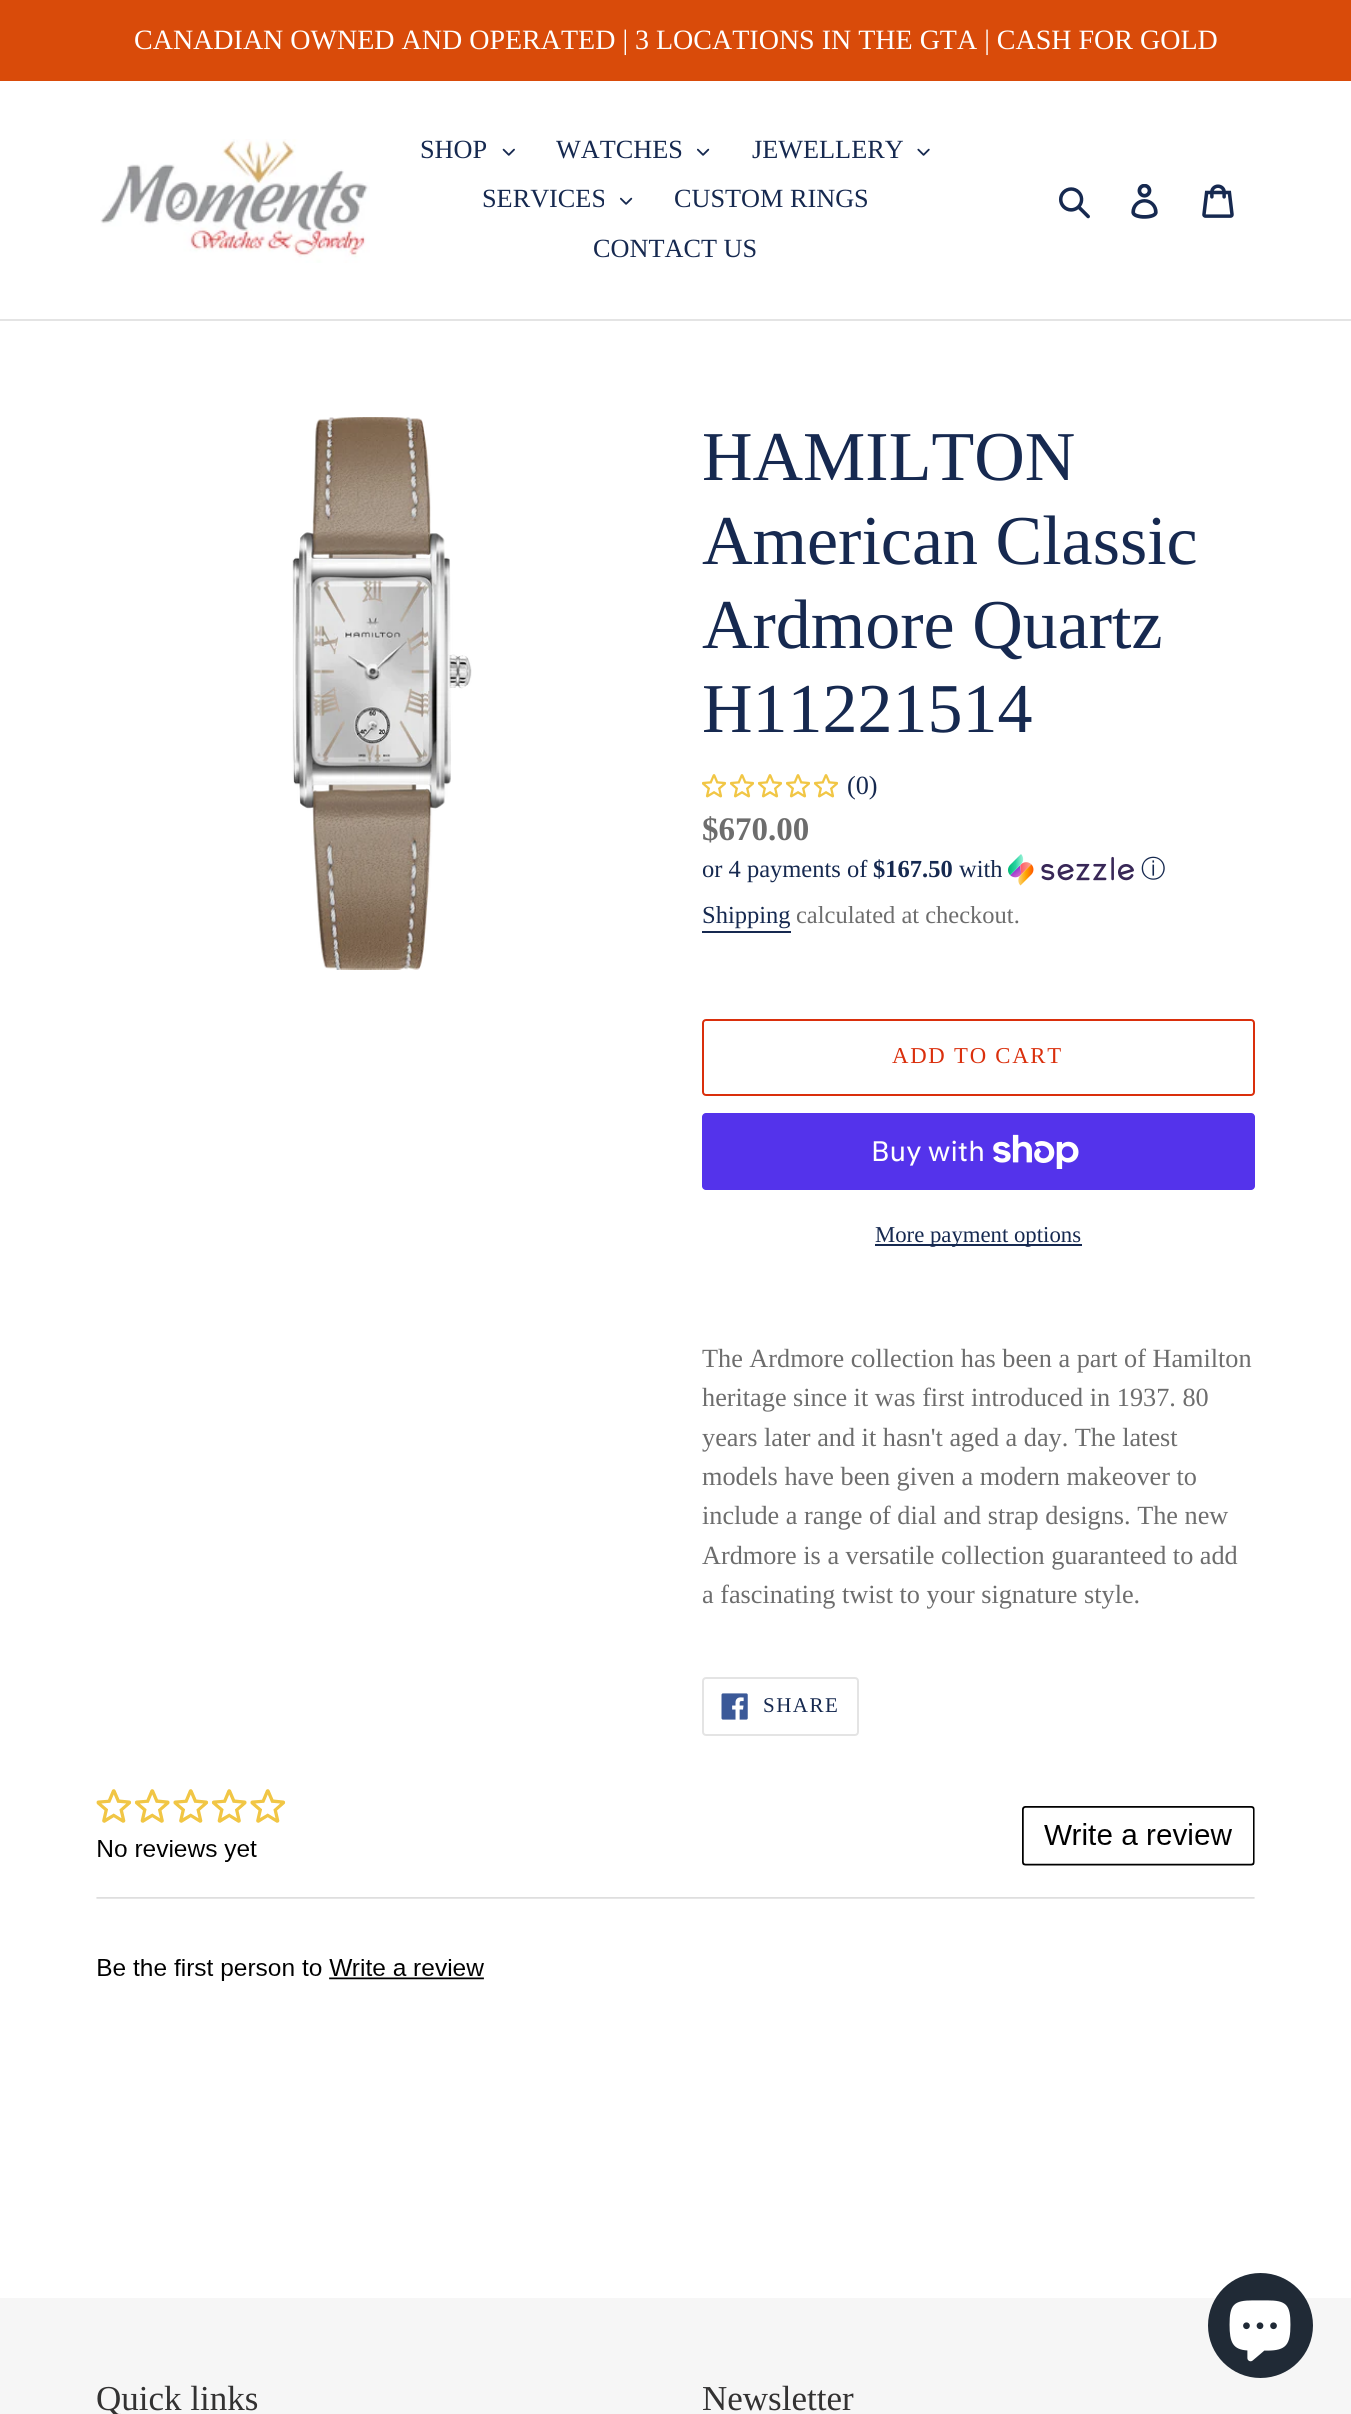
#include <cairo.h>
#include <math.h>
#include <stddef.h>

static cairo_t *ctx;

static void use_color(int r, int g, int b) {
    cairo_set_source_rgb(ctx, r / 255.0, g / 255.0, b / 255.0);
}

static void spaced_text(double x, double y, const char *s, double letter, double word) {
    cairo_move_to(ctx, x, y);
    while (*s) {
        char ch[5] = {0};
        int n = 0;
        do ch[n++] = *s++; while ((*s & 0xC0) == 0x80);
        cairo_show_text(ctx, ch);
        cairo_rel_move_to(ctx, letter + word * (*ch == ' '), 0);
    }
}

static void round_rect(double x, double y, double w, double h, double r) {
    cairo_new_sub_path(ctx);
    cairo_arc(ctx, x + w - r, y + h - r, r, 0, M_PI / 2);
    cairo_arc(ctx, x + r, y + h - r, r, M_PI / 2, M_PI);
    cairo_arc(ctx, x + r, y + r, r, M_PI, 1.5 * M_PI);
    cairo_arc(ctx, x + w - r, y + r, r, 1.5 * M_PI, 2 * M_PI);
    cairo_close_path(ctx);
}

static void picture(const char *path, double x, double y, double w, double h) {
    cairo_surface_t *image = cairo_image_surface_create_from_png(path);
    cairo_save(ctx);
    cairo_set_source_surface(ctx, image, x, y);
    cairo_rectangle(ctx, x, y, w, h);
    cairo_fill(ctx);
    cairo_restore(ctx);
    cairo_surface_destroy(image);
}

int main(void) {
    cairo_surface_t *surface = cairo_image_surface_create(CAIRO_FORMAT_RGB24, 1351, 2414);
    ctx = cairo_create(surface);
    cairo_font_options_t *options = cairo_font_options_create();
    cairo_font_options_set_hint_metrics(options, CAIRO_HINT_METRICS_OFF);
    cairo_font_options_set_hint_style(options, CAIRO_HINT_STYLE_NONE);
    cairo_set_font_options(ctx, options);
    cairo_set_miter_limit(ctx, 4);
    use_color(255, 255, 255);
    cairo_paint(ctx);
    use_color(217, 75, 10);
    cairo_rectangle(ctx, 0, 0, 1351, 81);
    cairo_fill(ctx);
    cairo_select_font_face(ctx, "Liberation Serif", CAIRO_FONT_SLANT_NORMAL, CAIRO_FONT_WEIGHT_NORMAL);
    cairo_set_font_size(ctx, 28);
    use_color(255, 255, 255);
    cairo_move_to(ctx, 134, 49);
    cairo_show_text(ctx, "CANADIAN OWNED AND OPERATED | 3 LOCATIONS IN THE GTA | CASH FOR GOLD");
    use_color(228, 228, 228);
    cairo_rectangle(ctx, 0, 319, 1351, 2);
    cairo_fill(ctx);
    picture("img1.png", 100, 139, 270, 124);
    cairo_set_font_size(ctx, 26.25);
    use_color(22, 41, 80);
    cairo_move_to(ctx, 420, 158);
    cairo_show_text(ctx, "SHOP");
    picture("img2.png", 502, 148, 13, 8);
    cairo_move_to(ctx, 556, 158);
    cairo_show_text(ctx, "WATCHES");
    picture("img3.png", 697, 148, 13, 8);
    cairo_move_to(ctx, 752, 158);
    cairo_show_text(ctx, "JEWELLERY");
    picture("img4.png", 917, 148, 13, 8);
    cairo_move_to(ctx, 482, 207);
    cairo_show_text(ctx, "SERVICES");
    picture("img3.png", 620, 197, 13, 8);
    cairo_move_to(ctx, 674, 207);
    cairo_show_text(ctx, "CUSTOM RINGS");
    cairo_move_to(ctx, 593, 257);
    cairo_show_text(ctx, "CONTACT US");
    picture("img5.png", 1059, 187, 31, 32);
    picture("img6.png", 1131, 184, 27, 35);
    picture("img7.png", 1202, 184, 32, 34);
    picture("img8.png", 292, 417, 180, 553);
    cairo_set_font_size(ctx, 70);
    cairo_move_to(ctx, 702, 480);
    cairo_show_text(ctx, "HAMILTON");
    cairo_move_to(ctx, 702, 564);
    cairo_show_text(ctx, "American Classic");
    cairo_move_to(ctx, 702, 648);
    cairo_show_text(ctx, "Ardmore Quartz");
    cairo_move_to(ctx, 702, 732);
    cairo_show_text(ctx, "H11221514");
    picture("img9.png", 702, 774, 24, 24);
    picture("img9.png", 730, 774, 24, 24);
    picture("img9.png", 758, 774, 24, 24);
    picture("img9.png", 786, 774, 24, 24);
    picture("img9.png", 814, 774, 24, 24);
    cairo_set_font_size(ctx, 26.25);
    cairo_move_to(ctx, 847, 794);
    cairo_show_text(ctx, "(0)");
    cairo_select_font_face(ctx, "Liberation Serif", CAIRO_FONT_SLANT_NORMAL, CAIRO_FONT_WEIGHT_BOLD);
    cairo_set_font_size(ctx, 33);
    use_color(109, 109, 109);
    cairo_move_to(ctx, 702, 840);
    cairo_show_text(ctx, "$670.00");
    cairo_select_font_face(ctx, "Liberation Serif", CAIRO_FONT_SLANT_NORMAL, CAIRO_FONT_WEIGHT_NORMAL);
    cairo_set_font_size(ctx, 24.5);
    use_color(22, 41, 80);
    cairo_move_to(ctx, 702, 877);
    cairo_show_text(ctx, "or 4 payments of");
    cairo_select_font_face(ctx, "Liberation Serif", CAIRO_FONT_SLANT_NORMAL, CAIRO_FONT_WEIGHT_BOLD);
    cairo_move_to(ctx, 873, 877);
    cairo_show_text(ctx, "$167.50");
    cairo_select_font_face(ctx, "Liberation Serif", CAIRO_FONT_SLANT_NORMAL, CAIRO_FONT_WEIGHT_NORMAL);
    cairo_move_to(ctx, 959, 877);
    cairo_show_text(ctx, "with");
    picture("img10.png", 1008, 854, 126, 32);
    cairo_select_font_face(ctx, "WenQuanYi Zen Hei Medium", CAIRO_FONT_SLANT_NORMAL, CAIRO_FONT_WEIGHT_NORMAL);
    cairo_move_to(ctx, 1141, 877);
    cairo_show_text(ctx, "ⓘ");
    cairo_select_font_face(ctx, "Liberation Serif", CAIRO_FONT_SLANT_NORMAL, CAIRO_FONT_WEIGHT_NORMAL);
    cairo_move_to(ctx, 702, 923);
    cairo_show_text(ctx, "Shipping");
    cairo_rectangle(ctx, 702, 931, 89, 2);
    cairo_fill(ctx);
    use_color(109, 109, 109);
    cairo_move_to(ctx, 796, 923);
    cairo_show_text(ctx, "calculated at checkout.");
    round_rect(703, 1020, 551, 75, 3);
    use_color(218, 47, 12);
    cairo_stroke(ctx);
    cairo_set_font_size(ctx, 22.75);
    spaced_text(892, 1063, "ADD TO CART", 1.75, 0);
    use_color(84, 51, 235);
    round_rect(702, 1113, 553, 77, 4);
    cairo_fill(ctx);
    cairo_select_font_face(ctx, "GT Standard", CAIRO_FONT_SLANT_NORMAL, CAIRO_FONT_WEIGHT_NORMAL);
    cairo_set_font_size(ctx, 28);
    use_color(255, 255, 255);
    cairo_move_to(ctx, 871, 1161);
    cairo_show_text(ctx, "Buy with");
    picture("img11.png", 993, 1134, 86, 35);
    use_color(22, 41, 80);
    cairo_rectangle(ctx, 875, 1244, 207, 2);
    cairo_fill(ctx);
    cairo_select_font_face(ctx, "Liberation Serif", CAIRO_FONT_SLANT_NORMAL, CAIRO_FONT_WEIGHT_NORMAL);
    cairo_set_font_size(ctx, 22.75);
    cairo_move_to(ctx, 875, 1242);
    cairo_show_text(ctx, "More payment options");
    cairo_set_font_size(ctx, 26.25);
    use_color(109, 109, 109);
    cairo_move_to(ctx, 702, 1367);
    cairo_show_text(ctx, "The Ardmore collection has been a part of Hamilton");
    cairo_move_to(ctx, 702, 1406);
    cairo_show_text(ctx, "heritage since it was first introduced in 1937. 80");
    cairo_move_to(ctx, 702, 1446);
    cairo_show_text(ctx, "years later and it hasn't aged a day. The latest");
    cairo_move_to(ctx, 702, 1485);
    cairo_show_text(ctx, "models have been given a modern makeover to");
    cairo_move_to(ctx, 702, 1524);
    cairo_show_text(ctx, "include a range of dial and strap designs. The new");
    cairo_move_to(ctx, 702, 1564);
    cairo_show_text(ctx, "Ardmore is a versatile collection guaranteed to add");
    cairo_move_to(ctx, 702, 1603);
    cairo_show_text(ctx, "a fascinating twist to your signature style.");
    round_rect(703, 1678, 155, 57, 3);
    use_color(228, 228, 228);
    cairo_stroke(ctx);
    picture("img12.png", 721, 1693, 27, 27);
    cairo_set_font_size(ctx, 21);
    use_color(22, 41, 80);
    spaced_text(763, 1712, "SHARE", 1.5, 0);
    picture("img13.png", 96, 1789, 1159, 192);
    use_color(246, 246, 246);
    cairo_rectangle(ctx, 0, 2298, 1351, 116);
    cairo_fill(ctx);
    cairo_set_font_size(ctx, 35);
    use_color(51, 50, 50);
    cairo_move_to(ctx, 96, 2410);
    cairo_show_text(ctx, "Quick links");
    cairo_move_to(ctx, 702, 2410);
    cairo_show_text(ctx, "Newsletter");
    use_color(32, 42, 54);
    cairo_new_path(ctx);
    cairo_arc(ctx, 1260.5, 2325.5, 52.5, 0, 2 * M_PI);
    cairo_fill(ctx);
    picture("img14.png", 1229, 2300, 62, 62);
    cairo_surface_write_to_png(surface, "result.png");
    cairo_font_options_destroy(options);
    cairo_destroy(ctx);
    cairo_surface_destroy(surface);
    return 0;
}
